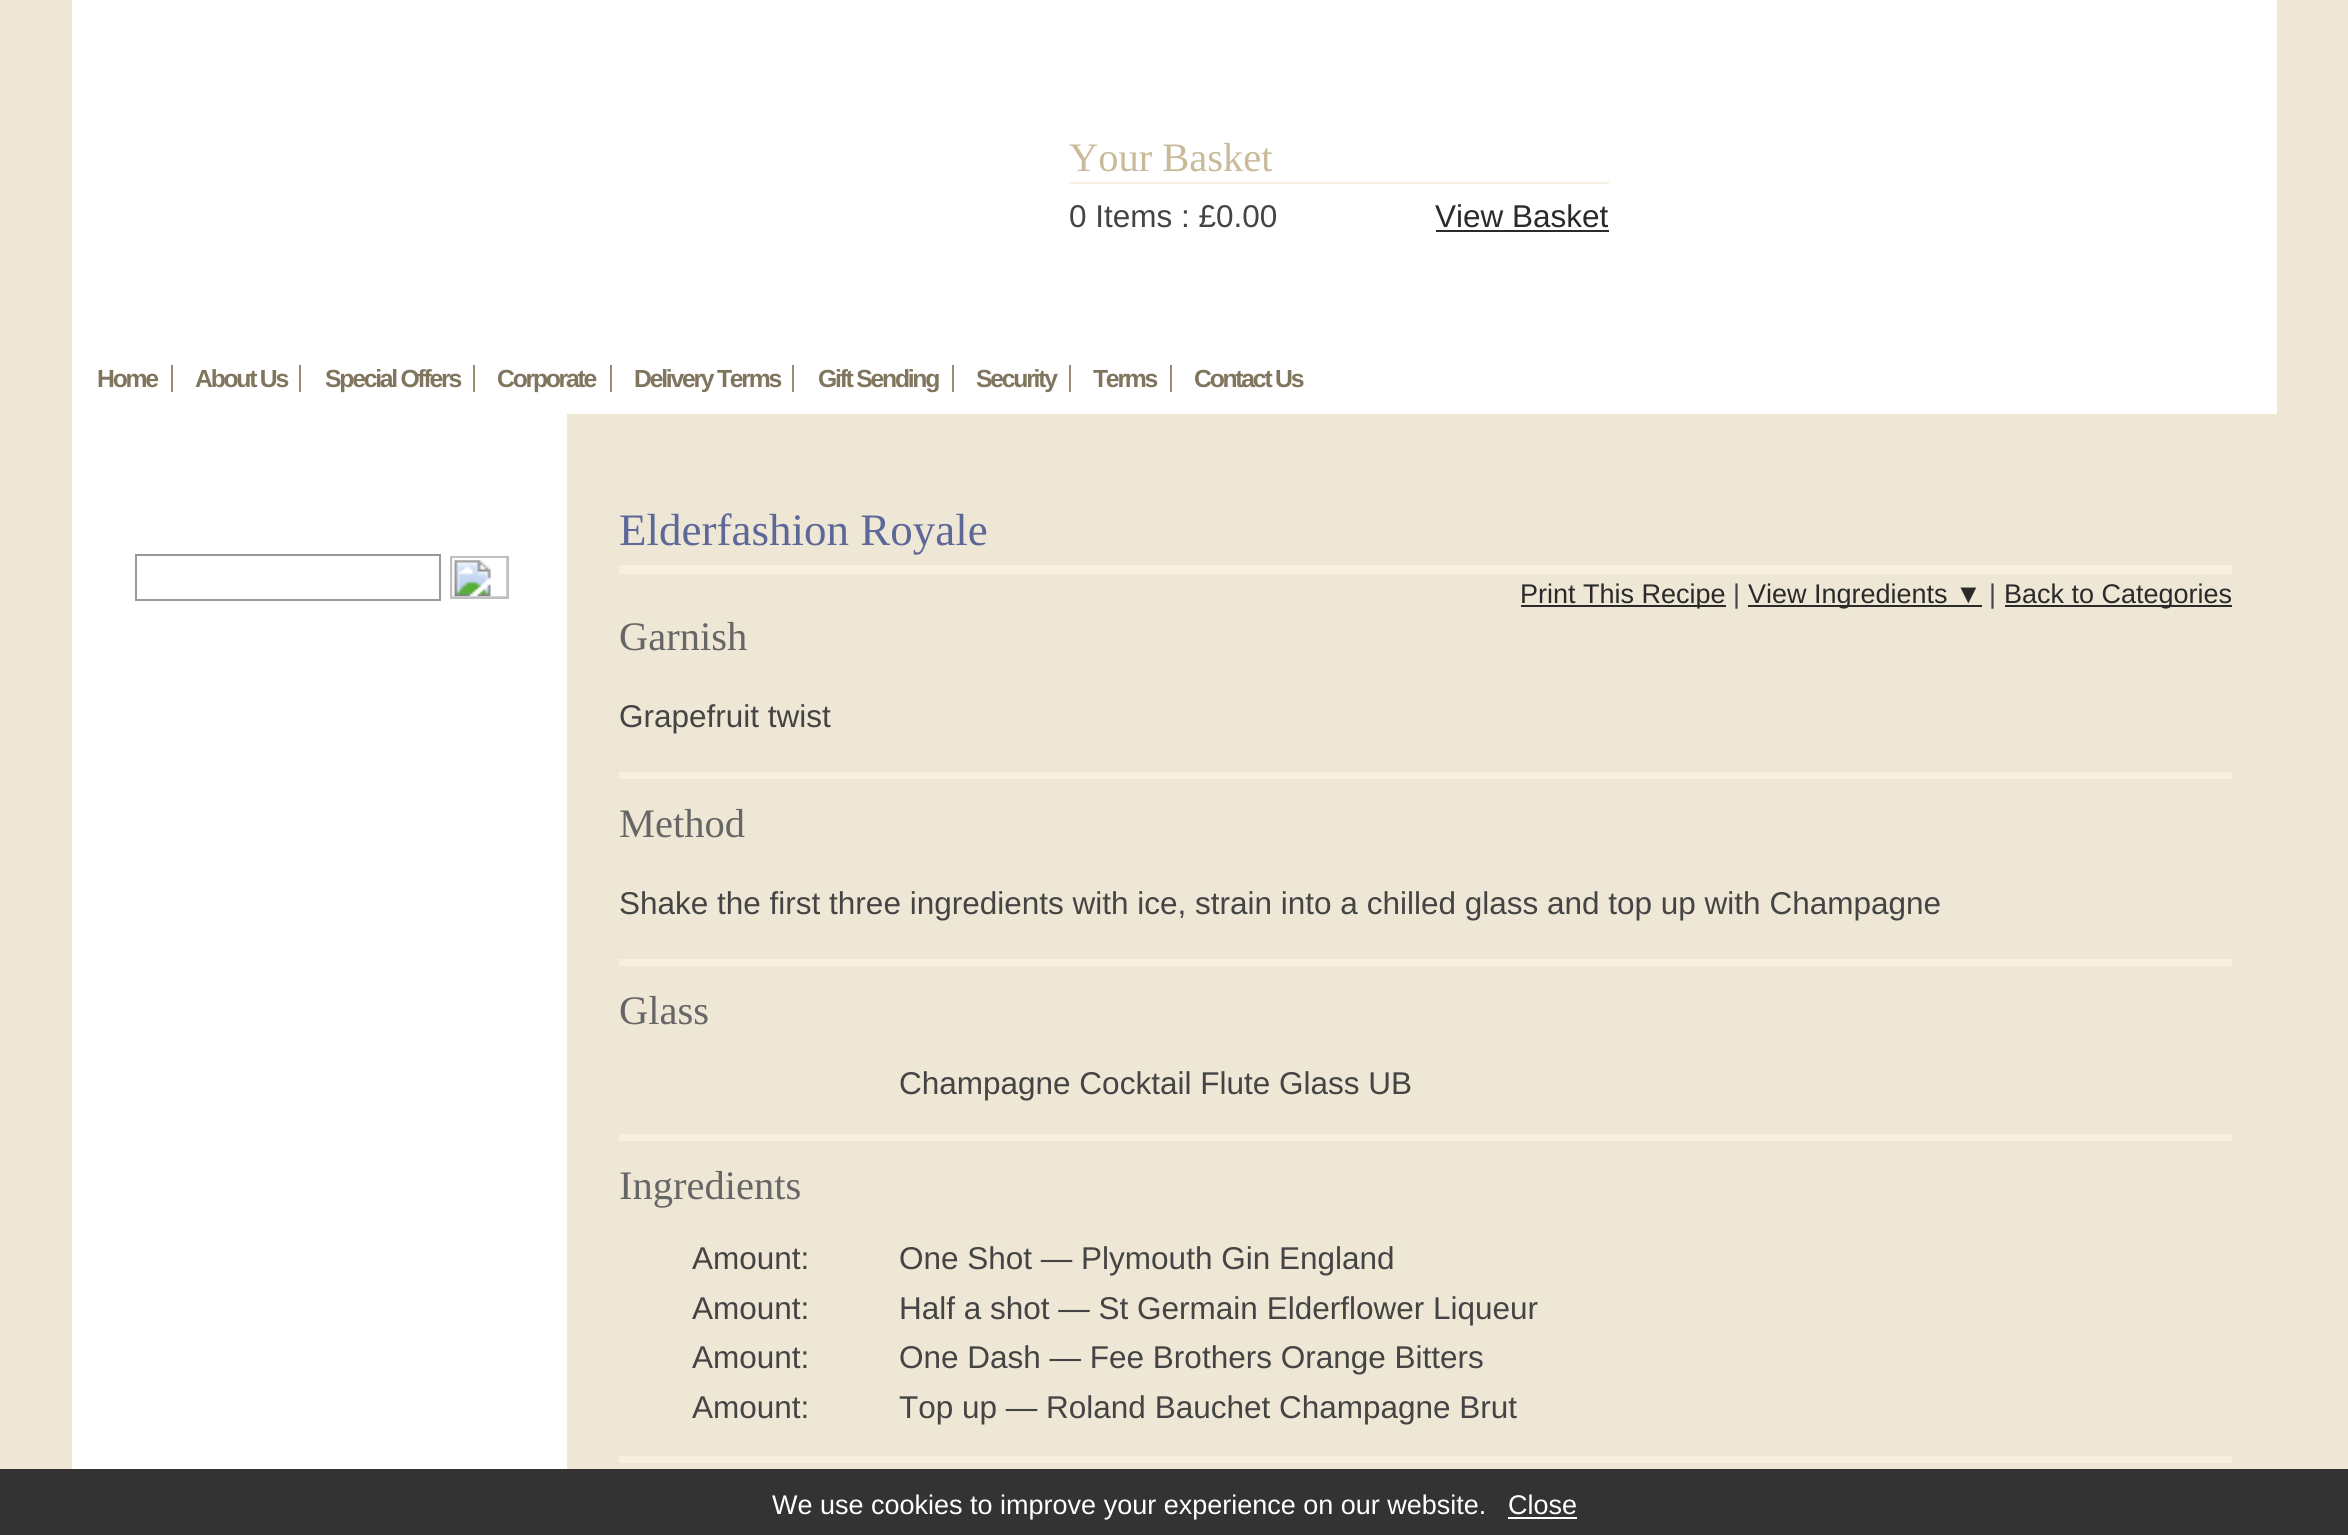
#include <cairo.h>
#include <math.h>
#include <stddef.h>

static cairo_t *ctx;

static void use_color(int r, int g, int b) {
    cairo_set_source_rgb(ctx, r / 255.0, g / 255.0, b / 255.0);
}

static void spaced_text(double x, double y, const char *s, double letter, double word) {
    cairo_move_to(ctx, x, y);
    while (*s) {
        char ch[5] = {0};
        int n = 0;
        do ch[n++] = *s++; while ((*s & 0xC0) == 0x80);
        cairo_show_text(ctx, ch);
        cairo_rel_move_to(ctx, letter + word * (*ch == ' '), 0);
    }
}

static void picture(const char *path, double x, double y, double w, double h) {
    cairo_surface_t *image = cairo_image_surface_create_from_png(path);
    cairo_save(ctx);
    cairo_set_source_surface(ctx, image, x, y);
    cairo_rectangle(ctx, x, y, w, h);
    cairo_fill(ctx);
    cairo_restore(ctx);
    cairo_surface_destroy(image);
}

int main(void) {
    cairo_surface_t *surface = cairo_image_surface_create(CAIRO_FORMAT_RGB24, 2348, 1535);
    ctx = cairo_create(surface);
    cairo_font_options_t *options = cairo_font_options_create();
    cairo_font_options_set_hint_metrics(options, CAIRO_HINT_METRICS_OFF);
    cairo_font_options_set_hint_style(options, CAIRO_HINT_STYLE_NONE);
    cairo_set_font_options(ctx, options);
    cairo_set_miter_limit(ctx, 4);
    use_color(238, 231, 214);
    cairo_paint(ctx);
    use_color(255, 255, 255);
    cairo_rectangle(ctx, 72, 0, 2205, 414);
    cairo_fill(ctx);
    use_color(247, 240, 225);
    cairo_rectangle(ctx, 1069, 182, 540, 2);
    cairo_fill(ctx);
    cairo_select_font_face(ctx, "Liberation Serif", CAIRO_FONT_SLANT_NORMAL, CAIRO_FONT_WEIGHT_NORMAL);
    cairo_set_font_size(ctx, 40.5);
    use_color(201, 187, 154);
    cairo_move_to(ctx, 1069, 171);
    cairo_show_text(ctx, "Your Basket");
    cairo_select_font_face(ctx, "Liberation Sans", CAIRO_FONT_SLANT_NORMAL, CAIRO_FONT_WEIGHT_NORMAL);
    cairo_set_font_size(ctx, 31.5);
    use_color(68, 68, 68);
    cairo_move_to(ctx, 1069, 227);
    cairo_show_text(ctx, "0 Items : £0.00");
    use_color(42, 42, 42);
    cairo_move_to(ctx, 1435, 227);
    cairo_show_text(ctx, "View Basket");
    cairo_rectangle(ctx, 1436, 230, 173, 2);
    cairo_fill(ctx);
    cairo_select_font_face(ctx, "Liberation Sans", CAIRO_FONT_SLANT_NORMAL, CAIRO_FONT_WEIGHT_BOLD);
    cairo_set_font_size(ctx, 24.75);
    use_color(128, 117, 94);
    spaced_text(97, 387, "Home", -2.25, 0);
    use_color(152, 140, 113);
    cairo_rectangle(ctx, 171, 365, 2, 27);
    cairo_fill(ctx);
    use_color(128, 117, 94);
    spaced_text(195, 387, "About Us", -2.25, 0);
    use_color(152, 140, 113);
    cairo_rectangle(ctx, 299, 365, 2, 27);
    cairo_fill(ctx);
    use_color(128, 117, 94);
    spaced_text(325, 387, "Special Offers", -2.25, 0);
    use_color(152, 140, 113);
    cairo_rectangle(ctx, 473, 365, 2, 27);
    cairo_fill(ctx);
    use_color(128, 117, 94);
    spaced_text(497, 387, "Corporate", -2.25, 0);
    use_color(152, 140, 113);
    cairo_rectangle(ctx, 610, 365, 2, 27);
    cairo_fill(ctx);
    use_color(128, 117, 94);
    spaced_text(634, 387, "Delivery Terms", -2.25, 0);
    use_color(152, 140, 113);
    cairo_rectangle(ctx, 792, 365, 2, 27);
    cairo_fill(ctx);
    use_color(128, 117, 94);
    spaced_text(818, 387, "Gift Sending", -2.25, 0);
    use_color(152, 140, 113);
    cairo_rectangle(ctx, 952, 365, 2, 27);
    cairo_fill(ctx);
    use_color(128, 117, 94);
    spaced_text(976, 387, "Security", -2.25, 0);
    use_color(152, 140, 113);
    cairo_rectangle(ctx, 1069, 365, 2, 27);
    cairo_fill(ctx);
    use_color(128, 117, 94);
    spaced_text(1093, 387, "Terms", -2.25, 0);
    use_color(152, 140, 113);
    cairo_rectangle(ctx, 1170, 365, 2, 27);
    cairo_fill(ctx);
    use_color(128, 117, 94);
    spaced_text(1194, 387, "Contact Us", -2.25, 0);
    use_color(255, 255, 255);
    cairo_rectangle(ctx, 72, 414, 495, 1055);
    cairo_fill(ctx);
    cairo_rectangle(ctx, 136, 555, 304, 45);
    use_color(153, 153, 153);
    cairo_stroke(ctx);
    picture("img1.png", 450, 555, 58, 42);
    cairo_rectangle(ctx, 451, 557, 57, 41);
    use_color(192, 192, 192);
    cairo_stroke(ctx);
    use_color(247, 240, 225);
    cairo_rectangle(ctx, 619, 565, 1613, 9);
    cairo_fill(ctx);
    cairo_select_font_face(ctx, "Liberation Serif", CAIRO_FONT_SLANT_NORMAL, CAIRO_FONT_WEIGHT_NORMAL);
    cairo_set_font_size(ctx, 45);
    use_color(93, 103, 152);
    cairo_move_to(ctx, 619, 545);
    cairo_show_text(ctx, "Elderfashion Royale");
    use_color(42, 42, 42);
    cairo_rectangle(ctx, 1521, 605, 205, 2);
    cairo_fill(ctx);
    cairo_select_font_face(ctx, "Liberation Sans", CAIRO_FONT_SLANT_NORMAL, CAIRO_FONT_WEIGHT_NORMAL);
    cairo_set_font_size(ctx, 27);
    cairo_move_to(ctx, 1520, 603);
    cairo_show_text(ctx, "Print This Recipe");
    use_color(68, 68, 68);
    cairo_move_to(ctx, 1733, 603);
    cairo_show_text(ctx, "|");
    use_color(42, 42, 42);
    cairo_rectangle(ctx, 1748, 605, 234, 2);
    cairo_fill(ctx);
    cairo_move_to(ctx, 1748, 603);
    cairo_show_text(ctx, "View Ingredients ▼");
    use_color(68, 68, 68);
    cairo_move_to(ctx, 1989, 603);
    cairo_show_text(ctx, "|");
    use_color(42, 42, 42);
    cairo_rectangle(ctx, 2005, 605, 227, 2);
    cairo_fill(ctx);
    cairo_move_to(ctx, 2004, 603);
    cairo_show_text(ctx, "Back to Categories");
    cairo_select_font_face(ctx, "Liberation Serif", CAIRO_FONT_SLANT_NORMAL, CAIRO_FONT_WEIGHT_NORMAL);
    cairo_set_font_size(ctx, 40.5);
    use_color(102, 102, 102);
    cairo_move_to(ctx, 619, 650);
    cairo_show_text(ctx, "Garnish");
    cairo_select_font_face(ctx, "Liberation Sans", CAIRO_FONT_SLANT_NORMAL, CAIRO_FONT_WEIGHT_NORMAL);
    cairo_set_font_size(ctx, 31.5);
    use_color(68, 68, 68);
    cairo_move_to(ctx, 619, 727);
    cairo_show_text(ctx, "Grapefruit twist");
    use_color(247, 240, 225);
    cairo_rectangle(ctx, 619, 772, 1613, 7);
    cairo_fill(ctx);
    cairo_select_font_face(ctx, "Liberation Serif", CAIRO_FONT_SLANT_NORMAL, CAIRO_FONT_WEIGHT_NORMAL);
    cairo_set_font_size(ctx, 40.5);
    use_color(102, 102, 102);
    cairo_move_to(ctx, 619, 837);
    cairo_show_text(ctx, "Method");
    cairo_select_font_face(ctx, "Liberation Sans", CAIRO_FONT_SLANT_NORMAL, CAIRO_FONT_WEIGHT_NORMAL);
    cairo_set_font_size(ctx, 31.5);
    use_color(68, 68, 68);
    cairo_move_to(ctx, 619, 914);
    cairo_show_text(ctx, "Shake the first three ingredients with ice, strain into a chilled glass and top up with Champagne");
    use_color(247, 240, 225);
    cairo_rectangle(ctx, 619, 959, 1613, 7);
    cairo_fill(ctx);
    cairo_select_font_face(ctx, "Liberation Serif", CAIRO_FONT_SLANT_NORMAL, CAIRO_FONT_WEIGHT_NORMAL);
    cairo_set_font_size(ctx, 40.5);
    use_color(102, 102, 102);
    cairo_move_to(ctx, 619, 1024);
    cairo_show_text(ctx, "Glass");
    cairo_select_font_face(ctx, "Liberation Sans", CAIRO_FONT_SLANT_NORMAL, CAIRO_FONT_WEIGHT_NORMAL);
    cairo_set_font_size(ctx, 31.5);
    use_color(68, 68, 68);
    cairo_move_to(ctx, 899, 1094);
    cairo_show_text(ctx, "Champagne Cocktail Flute Glass UB");
    use_color(247, 240, 225);
    cairo_rectangle(ctx, 619, 1134, 1613, 7);
    cairo_fill(ctx);
    cairo_select_font_face(ctx, "Liberation Serif", CAIRO_FONT_SLANT_NORMAL, CAIRO_FONT_WEIGHT_NORMAL);
    cairo_set_font_size(ctx, 40.5);
    use_color(102, 102, 102);
    cairo_move_to(ctx, 619, 1199);
    cairo_show_text(ctx, "Ingredients");
    cairo_select_font_face(ctx, "Liberation Sans", CAIRO_FONT_SLANT_NORMAL, CAIRO_FONT_WEIGHT_NORMAL);
    cairo_set_font_size(ctx, 31.5);
    use_color(68, 68, 68);
    cairo_move_to(ctx, 692, 1269);
    cairo_show_text(ctx, "Amount:");
    cairo_move_to(ctx, 899, 1269);
    cairo_show_text(ctx, "One Shot — Plymouth Gin England");
    cairo_move_to(ctx, 692, 1319);
    cairo_show_text(ctx, "Amount:");
    cairo_move_to(ctx, 899, 1319);
    cairo_show_text(ctx, "Half a shot — St Germain Elderflower Liqueur");
    cairo_move_to(ctx, 692, 1368);
    cairo_show_text(ctx, "Amount:");
    cairo_move_to(ctx, 899, 1368);
    cairo_show_text(ctx, "One Dash — Fee Brothers Orange Bitters");
    cairo_move_to(ctx, 692, 1418);
    cairo_show_text(ctx, "Amount:");
    cairo_move_to(ctx, 899, 1418);
    cairo_show_text(ctx, "Top up — Roland Bauchet Champagne Brut");
    use_color(247, 240, 225);
    cairo_rectangle(ctx, 619, 1456, 1613, 7);
    cairo_fill(ctx);
    use_color(51, 51, 51);
    cairo_rectangle(ctx, 0, 1469, 2348, 66);
    cairo_fill(ctx);
    cairo_set_font_size(ctx, 27);
    use_color(255, 255, 255);
    cairo_move_to(ctx, 772, 1514);
    cairo_show_text(ctx, "We use cookies to improve your experience on our website.");
    cairo_move_to(ctx, 1508, 1514);
    cairo_show_text(ctx, "Close");
    cairo_rectangle(ctx, 1508, 1517, 69, 2);
    cairo_fill(ctx);
    cairo_surface_write_to_png(surface, "result.png");
    cairo_font_options_destroy(options);
    cairo_destroy(ctx);
    cairo_surface_destroy(surface);
    return 0;
}
